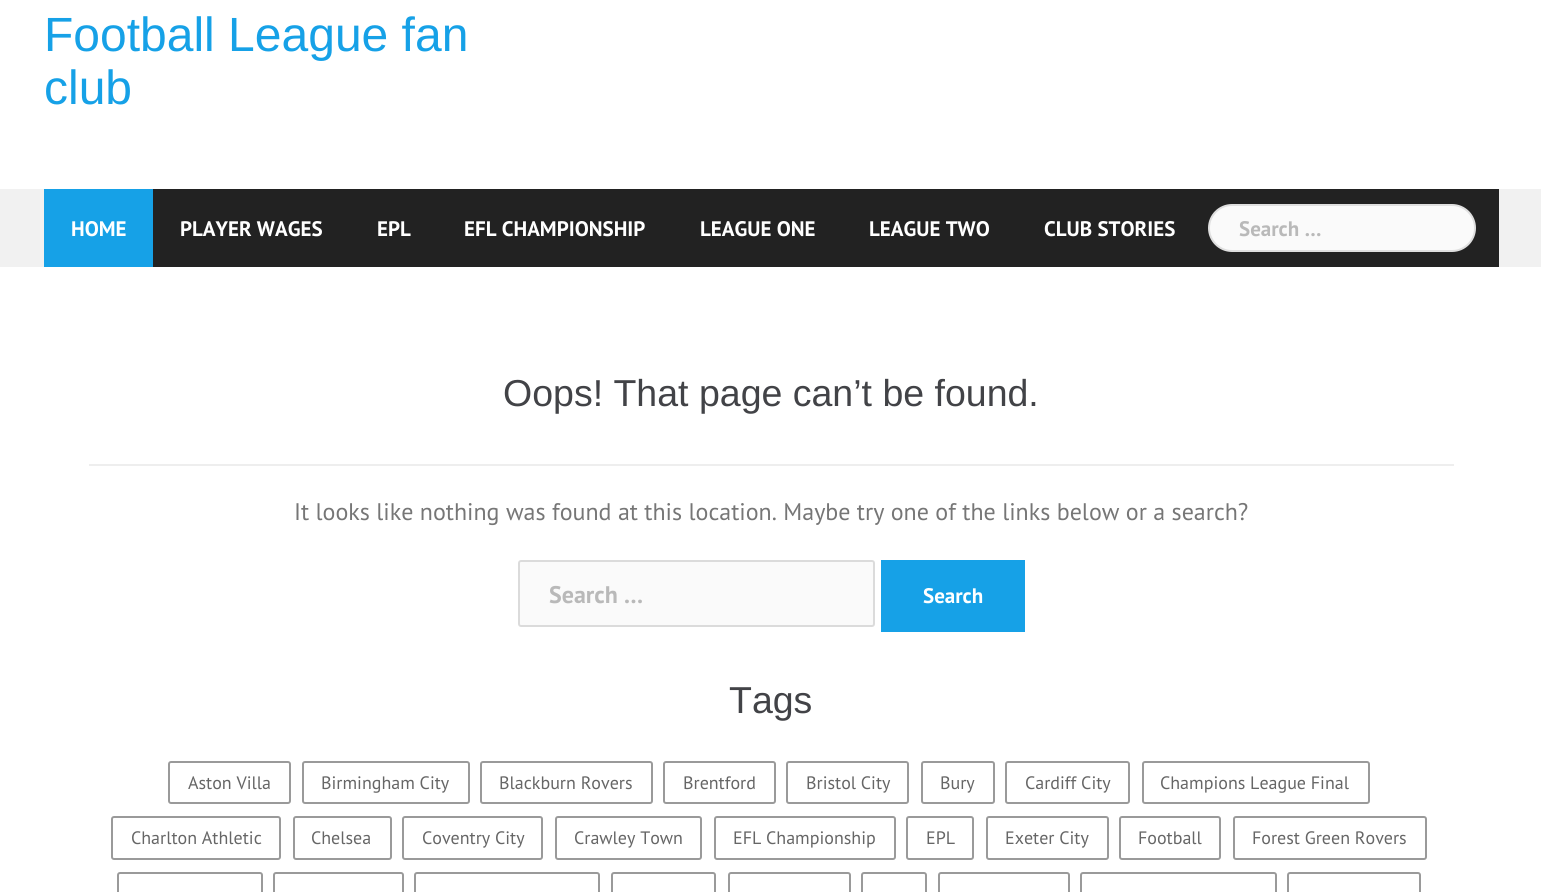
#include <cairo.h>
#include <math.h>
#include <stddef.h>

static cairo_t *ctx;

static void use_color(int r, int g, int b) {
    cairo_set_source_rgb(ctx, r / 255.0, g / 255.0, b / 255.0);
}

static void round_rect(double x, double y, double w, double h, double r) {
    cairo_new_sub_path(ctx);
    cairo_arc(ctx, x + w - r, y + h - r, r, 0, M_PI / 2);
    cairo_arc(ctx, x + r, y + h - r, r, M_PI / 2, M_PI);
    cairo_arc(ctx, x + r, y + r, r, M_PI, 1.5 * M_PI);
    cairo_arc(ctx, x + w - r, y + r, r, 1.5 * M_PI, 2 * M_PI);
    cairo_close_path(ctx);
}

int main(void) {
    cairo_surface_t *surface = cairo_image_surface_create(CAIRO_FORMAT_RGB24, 1541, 892);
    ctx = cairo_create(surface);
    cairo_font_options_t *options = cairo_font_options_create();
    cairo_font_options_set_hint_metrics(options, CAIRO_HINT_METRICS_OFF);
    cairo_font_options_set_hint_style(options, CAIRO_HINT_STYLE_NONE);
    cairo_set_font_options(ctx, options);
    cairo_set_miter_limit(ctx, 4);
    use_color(255, 255, 255);
    cairo_paint(ctx);
    cairo_select_font_face(ctx, "Liberation Sans", CAIRO_FONT_SLANT_NORMAL, CAIRO_FONT_WEIGHT_NORMAL);
    cairo_set_font_size(ctx, 48);
    use_color(22, 161, 231);
    cairo_move_to(ctx, 44, 51);
    cairo_show_text(ctx, "Football League fan");
    cairo_move_to(ctx, 44, 104);
    cairo_show_text(ctx, "club");
    use_color(241, 241, 241);
    cairo_rectangle(ctx, 0, 189, 1541, 78);
    cairo_fill(ctx);
    use_color(34, 34, 34);
    cairo_rectangle(ctx, 153, 189, 1346, 78);
    cairo_fill(ctx);
    use_color(22, 161, 231);
    cairo_rectangle(ctx, 44, 189, 109, 78);
    cairo_fill(ctx);
    cairo_select_font_face(ctx, "PT Sans", CAIRO_FONT_SLANT_NORMAL, CAIRO_FONT_WEIGHT_BOLD);
    cairo_set_font_size(ctx, 21);
    use_color(255, 255, 255);
    cairo_move_to(ctx, 71, 236);
    cairo_show_text(ctx, "HOME");
    cairo_move_to(ctx, 180, 236);
    cairo_show_text(ctx, "PLAYER WAGES");
    cairo_move_to(ctx, 377, 236);
    cairo_show_text(ctx, "EPL");
    cairo_move_to(ctx, 464, 236);
    cairo_show_text(ctx, "EFL CHAMPIONSHIP");
    cairo_move_to(ctx, 700, 236);
    cairo_show_text(ctx, "LEAGUE ONE");
    cairo_move_to(ctx, 869, 236);
    cairo_show_text(ctx, "LEAGUE TWO");
    cairo_move_to(ctx, 1044, 236);
    cairo_show_text(ctx, "CLUB STORIES");
    use_color(250, 250, 250);
    round_rect(1209, 205, 266, 46, 23);
    cairo_fill_preserve(ctx);
    use_color(223, 223, 223);
    cairo_stroke(ctx);
    use_color(185, 185, 185);
    cairo_move_to(ctx, 1239, 236);
    cairo_show_text(ctx, "Search …");
    use_color(238, 238, 238);
    cairo_rectangle(ctx, 89, 464, 1365, 2);
    cairo_fill(ctx);
    cairo_select_font_face(ctx, "Liberation Sans", CAIRO_FONT_SLANT_NORMAL, CAIRO_FONT_WEIGHT_NORMAL);
    cairo_set_font_size(ctx, 37.5);
    use_color(66, 67, 71);
    cairo_move_to(ctx, 503, 406);
    cairo_show_text(ctx, "Oops! That page can’t be found.");
    cairo_select_font_face(ctx, "PT Sans", CAIRO_FONT_SLANT_NORMAL, CAIRO_FONT_WEIGHT_NORMAL);
    cairo_set_font_size(ctx, 24);
    use_color(118, 118, 118);
    cairo_move_to(ctx, 294, 520);
    cairo_show_text(ctx, "It looks like nothing was found at this location. Maybe try one of the links below or a search?");
    use_color(250, 250, 250);
    round_rect(519, 561, 355, 65, 2);
    cairo_fill_preserve(ctx);
    use_color(219, 219, 219);
    cairo_stroke(ctx);
    cairo_select_font_face(ctx, "PT Sans", CAIRO_FONT_SLANT_NORMAL, CAIRO_FONT_WEIGHT_BOLD);
    use_color(185, 185, 185);
    cairo_move_to(ctx, 549, 603);
    cairo_show_text(ctx, "Search …");
    use_color(22, 161, 231);
    cairo_rectangle(ctx, 881, 560, 144, 72);
    cairo_fill(ctx);
    cairo_set_font_size(ctx, 21);
    use_color(255, 255, 255);
    cairo_move_to(ctx, 923, 603);
    cairo_show_text(ctx, "Search");
    cairo_select_font_face(ctx, "Liberation Sans", CAIRO_FONT_SLANT_NORMAL, CAIRO_FONT_WEIGHT_NORMAL);
    cairo_set_font_size(ctx, 37.5);
    use_color(66, 67, 71);
    cairo_move_to(ctx, 729, 713);
    cairo_show_text(ctx, "Tags");
    round_rect(169, 762, 121, 41, 2);
    use_color(154, 154, 154);
    cairo_stroke(ctx);
    cairo_select_font_face(ctx, "PT Sans", CAIRO_FONT_SLANT_NORMAL, CAIRO_FONT_WEIGHT_NORMAL);
    cairo_set_font_size(ctx, 18);
    use_color(102, 102, 102);
    cairo_move_to(ctx, 188, 789);
    cairo_show_text(ctx, "Aston Villa");
    round_rect(303, 762, 166, 41, 2);
    use_color(154, 154, 154);
    cairo_stroke(ctx);
    use_color(102, 102, 102);
    cairo_move_to(ctx, 321, 789);
    cairo_show_text(ctx, "Birmingham City");
    round_rect(481, 762, 171, 41, 2);
    use_color(154, 154, 154);
    cairo_stroke(ctx);
    use_color(102, 102, 102);
    cairo_move_to(ctx, 499, 789);
    cairo_show_text(ctx, "Blackburn Rovers");
    round_rect(664, 762, 111, 41, 2);
    use_color(154, 154, 154);
    cairo_stroke(ctx);
    use_color(102, 102, 102);
    cairo_move_to(ctx, 683, 789);
    cairo_show_text(ctx, "Brentford");
    round_rect(787, 762, 121, 41, 2);
    use_color(154, 154, 154);
    cairo_stroke(ctx);
    use_color(102, 102, 102);
    cairo_move_to(ctx, 806, 789);
    cairo_show_text(ctx, "Bristol City");
    round_rect(922, 762, 72, 41, 2);
    use_color(154, 154, 154);
    cairo_stroke(ctx);
    use_color(102, 102, 102);
    cairo_move_to(ctx, 940, 789);
    cairo_show_text(ctx, "Bury");
    round_rect(1006, 762, 123, 41, 2);
    use_color(154, 154, 154);
    cairo_stroke(ctx);
    use_color(102, 102, 102);
    cairo_move_to(ctx, 1025, 789);
    cairo_show_text(ctx, "Cardiff City");
    round_rect(1143, 762, 226, 41, 2);
    use_color(154, 154, 154);
    cairo_stroke(ctx);
    use_color(102, 102, 102);
    cairo_move_to(ctx, 1160, 789);
    cairo_show_text(ctx, "Champions League Final");
    round_rect(112, 817, 168, 42, 2);
    use_color(154, 154, 154);
    cairo_stroke(ctx);
    use_color(102, 102, 102);
    cairo_move_to(ctx, 131, 844);
    cairo_show_text(ctx, "Charlton Athletic");
    round_rect(294, 817, 97, 42, 2);
    use_color(154, 154, 154);
    cairo_stroke(ctx);
    use_color(102, 102, 102);
    cairo_move_to(ctx, 311, 844);
    cairo_show_text(ctx, "Chelsea");
    round_rect(403, 817, 139, 42, 2);
    use_color(154, 154, 154);
    cairo_stroke(ctx);
    use_color(102, 102, 102);
    cairo_move_to(ctx, 422, 844);
    cairo_show_text(ctx, "Coventry City");
    round_rect(556, 817, 145, 42, 2);
    use_color(154, 154, 154);
    cairo_stroke(ctx);
    use_color(102, 102, 102);
    cairo_move_to(ctx, 574, 844);
    cairo_show_text(ctx, "Crawley Town");
    round_rect(715, 817, 180, 42, 2);
    use_color(154, 154, 154);
    cairo_stroke(ctx);
    use_color(102, 102, 102);
    cairo_move_to(ctx, 733, 844);
    cairo_show_text(ctx, "EFL Championship");
    round_rect(907, 817, 66, 42, 2);
    use_color(154, 154, 154);
    cairo_stroke(ctx);
    use_color(102, 102, 102);
    cairo_move_to(ctx, 926, 844);
    cairo_show_text(ctx, "EPL");
    round_rect(987, 817, 121, 42, 2);
    use_color(154, 154, 154);
    cairo_stroke(ctx);
    use_color(102, 102, 102);
    cairo_move_to(ctx, 1005, 844);
    cairo_show_text(ctx, "Exeter City");
    round_rect(1120, 817, 100, 42, 2);
    use_color(154, 154, 154);
    cairo_stroke(ctx);
    use_color(102, 102, 102);
    cairo_move_to(ctx, 1138, 844);
    cairo_show_text(ctx, "Football");
    round_rect(1234, 817, 192, 42, 2);
    use_color(154, 154, 154);
    cairo_stroke(ctx);
    use_color(102, 102, 102);
    cairo_move_to(ctx, 1252, 844);
    cairo_show_text(ctx, "Forest Green Rovers");
    round_rect(118, 873, 144, 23, 2);
    use_color(154, 154, 154);
    cairo_stroke(ctx);
    round_rect(274, 873, 129, 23, 2);
    cairo_stroke(ctx);
    round_rect(415, 873, 184, 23, 2);
    cairo_stroke(ctx);
    round_rect(612, 873, 103, 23, 2);
    cairo_stroke(ctx);
    round_rect(729, 873, 121, 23, 2);
    cairo_stroke(ctx);
    round_rect(862, 873, 64, 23, 2);
    cairo_stroke(ctx);
    round_rect(939, 873, 130, 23, 2);
    cairo_stroke(ctx);
    round_rect(1081, 873, 195, 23, 2);
    cairo_stroke(ctx);
    round_rect(1288, 873, 132, 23, 2);
    cairo_stroke(ctx);
    cairo_surface_write_to_png(surface, "result.png");
    cairo_font_options_destroy(options);
    cairo_destroy(ctx);
    cairo_surface_destroy(surface);
    return 0;
}
